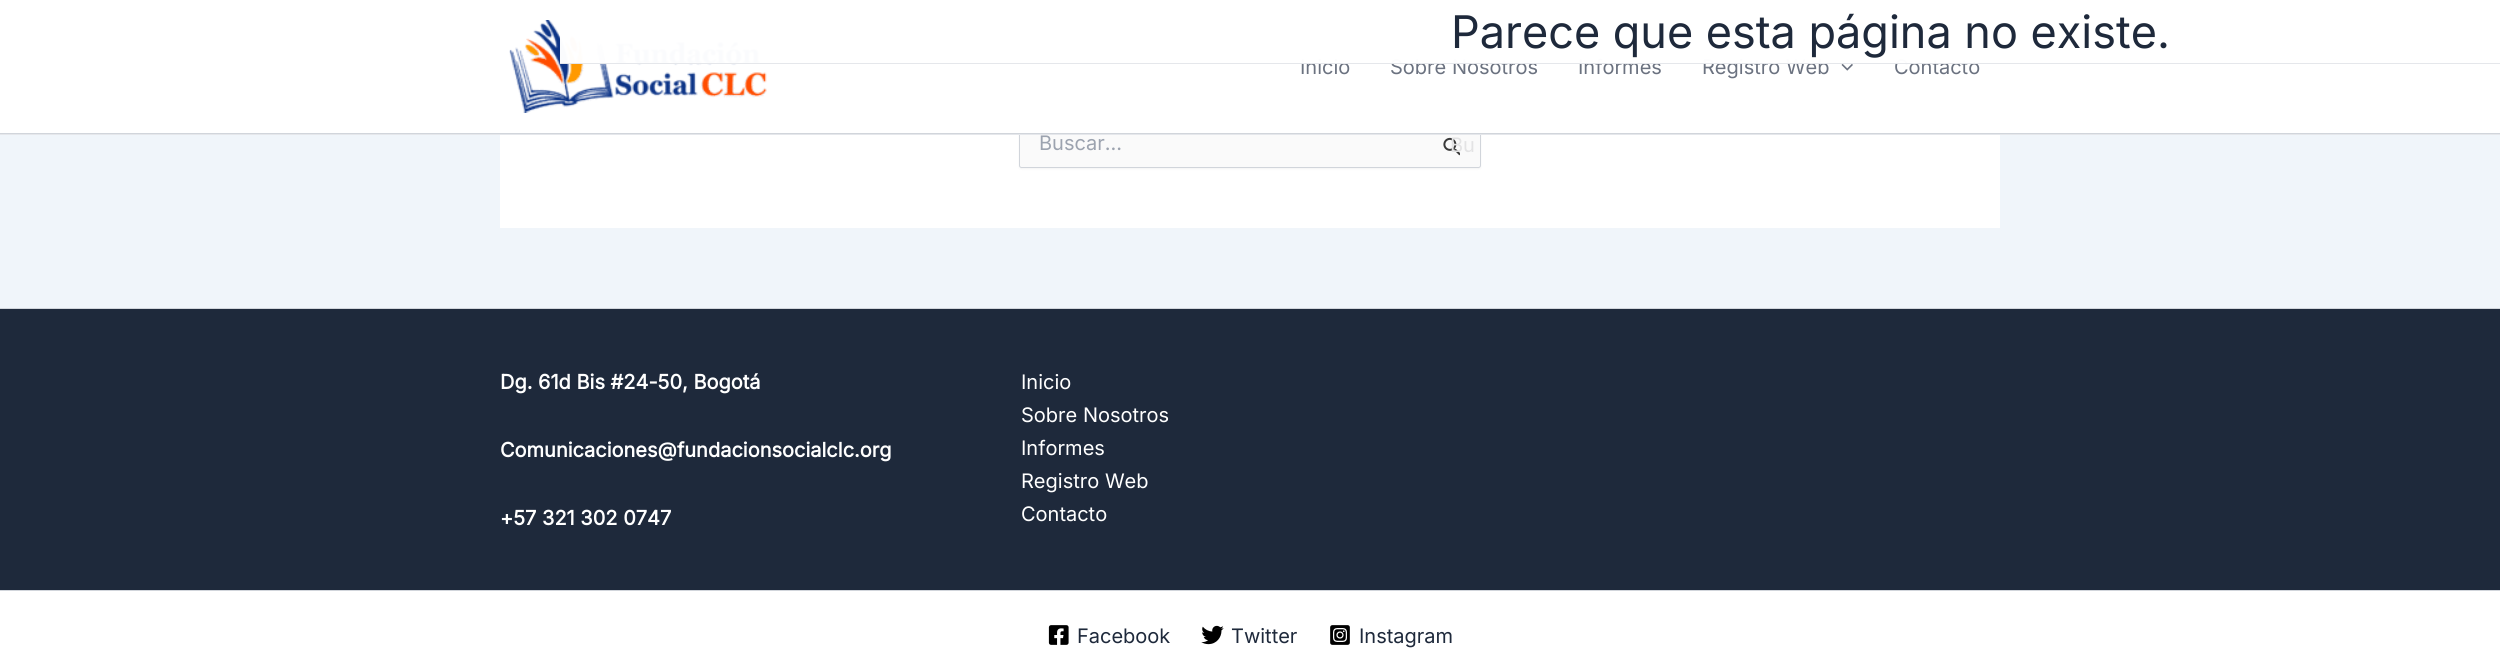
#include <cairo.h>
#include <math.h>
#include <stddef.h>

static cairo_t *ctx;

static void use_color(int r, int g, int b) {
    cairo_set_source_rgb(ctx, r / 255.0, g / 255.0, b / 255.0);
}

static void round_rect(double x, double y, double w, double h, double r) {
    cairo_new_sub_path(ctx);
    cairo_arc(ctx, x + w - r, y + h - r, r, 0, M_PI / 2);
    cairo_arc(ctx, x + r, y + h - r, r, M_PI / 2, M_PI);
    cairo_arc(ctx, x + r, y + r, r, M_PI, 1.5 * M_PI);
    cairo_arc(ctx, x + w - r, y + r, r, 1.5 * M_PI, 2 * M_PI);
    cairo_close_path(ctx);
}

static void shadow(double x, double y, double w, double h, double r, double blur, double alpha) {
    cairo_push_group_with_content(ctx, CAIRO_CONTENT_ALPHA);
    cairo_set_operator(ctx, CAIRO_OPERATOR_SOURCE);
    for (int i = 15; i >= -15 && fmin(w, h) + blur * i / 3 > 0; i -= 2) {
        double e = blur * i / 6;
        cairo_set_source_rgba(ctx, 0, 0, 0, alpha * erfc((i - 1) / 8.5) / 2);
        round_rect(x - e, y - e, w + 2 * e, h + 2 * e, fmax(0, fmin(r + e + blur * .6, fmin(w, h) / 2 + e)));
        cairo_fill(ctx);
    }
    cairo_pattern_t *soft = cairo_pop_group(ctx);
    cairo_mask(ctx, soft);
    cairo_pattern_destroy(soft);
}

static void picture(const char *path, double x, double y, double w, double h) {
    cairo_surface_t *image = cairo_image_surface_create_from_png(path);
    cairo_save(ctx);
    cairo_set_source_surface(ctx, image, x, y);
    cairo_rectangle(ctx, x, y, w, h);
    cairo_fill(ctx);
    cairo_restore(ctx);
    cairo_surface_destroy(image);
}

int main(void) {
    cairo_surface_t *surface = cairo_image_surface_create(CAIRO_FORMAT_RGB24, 2500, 660);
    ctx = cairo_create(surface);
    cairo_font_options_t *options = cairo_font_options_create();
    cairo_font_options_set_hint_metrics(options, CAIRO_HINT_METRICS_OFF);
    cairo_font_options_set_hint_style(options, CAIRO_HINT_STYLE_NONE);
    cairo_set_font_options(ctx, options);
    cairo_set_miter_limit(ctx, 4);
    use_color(240, 245, 250);
    cairo_paint(ctx);
    use_color(255, 255, 255);
    cairo_rectangle(ctx, 500, 135, 1500, 93);
    cairo_fill(ctx);
    use_color(0, 0, 0);
    shadow(1019, 119, 462, 50, 2.5, 1, 0.05);
    use_color(250, 250, 250);
    round_rect(1019.5, 118.5, 461, 49, 2);
    cairo_fill_preserve(ctx);
    use_color(209, 213, 219);
    cairo_set_line_width(ctx, 1);
    cairo_stroke(ctx);
    use_color(255, 255, 255);
    cairo_rectangle(ctx, 0, 0, 2500, 133);
    cairo_fill(ctx);
    picture("img2.png", 509, 20, 258, 93);
    cairo_select_font_face(ctx, "Inter", CAIRO_FONT_SLANT_NORMAL, CAIRO_FONT_WEIGHT_NORMAL);
    cairo_set_font_size(ctx, 20);
    use_color(107, 114, 128);
    cairo_move_to(ctx, 1300, 74);
    cairo_show_text(ctx, "Inicio");
    cairo_move_to(ctx, 1390, 74);
    cairo_show_text(ctx, "Sobre Nosotros");
    cairo_move_to(ctx, 1578, 74);
    cairo_show_text(ctx, "Informes");
    cairo_move_to(ctx, 1702, 74);
    cairo_show_text(ctx, "Registro Web");
    cairo_move_to(ctx, 1894, 74);
    cairo_show_text(ctx, "Contacto");
    cairo_set_source_rgba(ctx, 1, 1, 1, 0.98);
    cairo_rectangle(ctx, 560, 35, 1406, 28);
    cairo_fill(ctx);
    use_color(229, 231, 235);
    cairo_rectangle(ctx, 560, 63, 1940, 1);
    cairo_fill(ctx);
    cairo_set_font_size(ctx, 45);
    use_color(30, 41, 59);
    cairo_move_to(ctx, 1451, 48);
    cairo_show_text(ctx, "Parece que esta página no existe.");
    cairo_set_font_size(ctx, 20);
    use_color(156, 163, 175);
    cairo_move_to(ctx, 1039, 150);
    cairo_show_text(ctx, "Buscar...");
    picture("img1.png", 1443, 137, 17, 19);
    use_color(227, 227, 228);
    cairo_move_to(ctx, 1450, 152);
    cairo_show_text(ctx, "Bu");
    use_color(229, 231, 235);
    cairo_rectangle(ctx, 0, 134, 2500, 1);
    cairo_fill(ctx);
    use_color(209, 213, 219);
    cairo_rectangle(ctx, 0, 133, 2500, 1);
    cairo_fill(ctx);
    picture("img3.png", 1841, 64, 12, 7);
    use_color(30, 41, 59);
    cairo_rectangle(ctx, 0, 309, 2500, 281);
    cairo_fill(ctx);
    use_color(209, 213, 219);
    cairo_rectangle(ctx, 0, 308, 2500, 1);
    cairo_fill(ctx);
    cairo_select_font_face(ctx, "Inter", CAIRO_FONT_SLANT_NORMAL, CAIRO_FONT_WEIGHT_BOLD);
    use_color(255, 255, 255);
    cairo_move_to(ctx, 500, 389);
    cairo_show_text(ctx, "Dg. 61d Bis #24-50, Bogotá");
    cairo_move_to(ctx, 500, 457);
    cairo_show_text(ctx, "Comunicaciones@fundacionsocialclc.org");
    cairo_move_to(ctx, 500, 525);
    cairo_show_text(ctx, "+57 321 302 0747");
    cairo_select_font_face(ctx, "Inter", CAIRO_FONT_SLANT_NORMAL, CAIRO_FONT_WEIGHT_NORMAL);
    cairo_move_to(ctx, 1021, 389);
    cairo_show_text(ctx, "Inicio");
    cairo_move_to(ctx, 1021, 422);
    cairo_show_text(ctx, "Sobre Nosotros");
    cairo_move_to(ctx, 1021, 455);
    cairo_show_text(ctx, "Informes");
    cairo_move_to(ctx, 1021, 488);
    cairo_show_text(ctx, "Registro Web");
    cairo_move_to(ctx, 1021, 521);
    cairo_show_text(ctx, "Contacto");
    cairo_rectangle(ctx, 0, 591, 2500, 69);
    cairo_fill(ctx);
    use_color(209, 213, 219);
    cairo_rectangle(ctx, 0, 590, 2500, 1);
    cairo_fill(ctx);
    picture("img4.png", 1048, 625, 21, 20);
    use_color(30, 41, 59);
    cairo_move_to(ctx, 1077, 643);
    cairo_show_text(ctx, "Facebook");
    picture("img5.png", 1201, 625, 23, 20);
    cairo_move_to(ctx, 1231, 643);
    cairo_show_text(ctx, "Twitter");
    picture("img6.png", 1330, 625, 20, 20);
    cairo_move_to(ctx, 1359, 643);
    cairo_show_text(ctx, "Instagram");
    cairo_surface_write_to_png(surface, "result.png");
    cairo_font_options_destroy(options);
    cairo_destroy(ctx);
    cairo_surface_destroy(surface);
    return 0;
}
